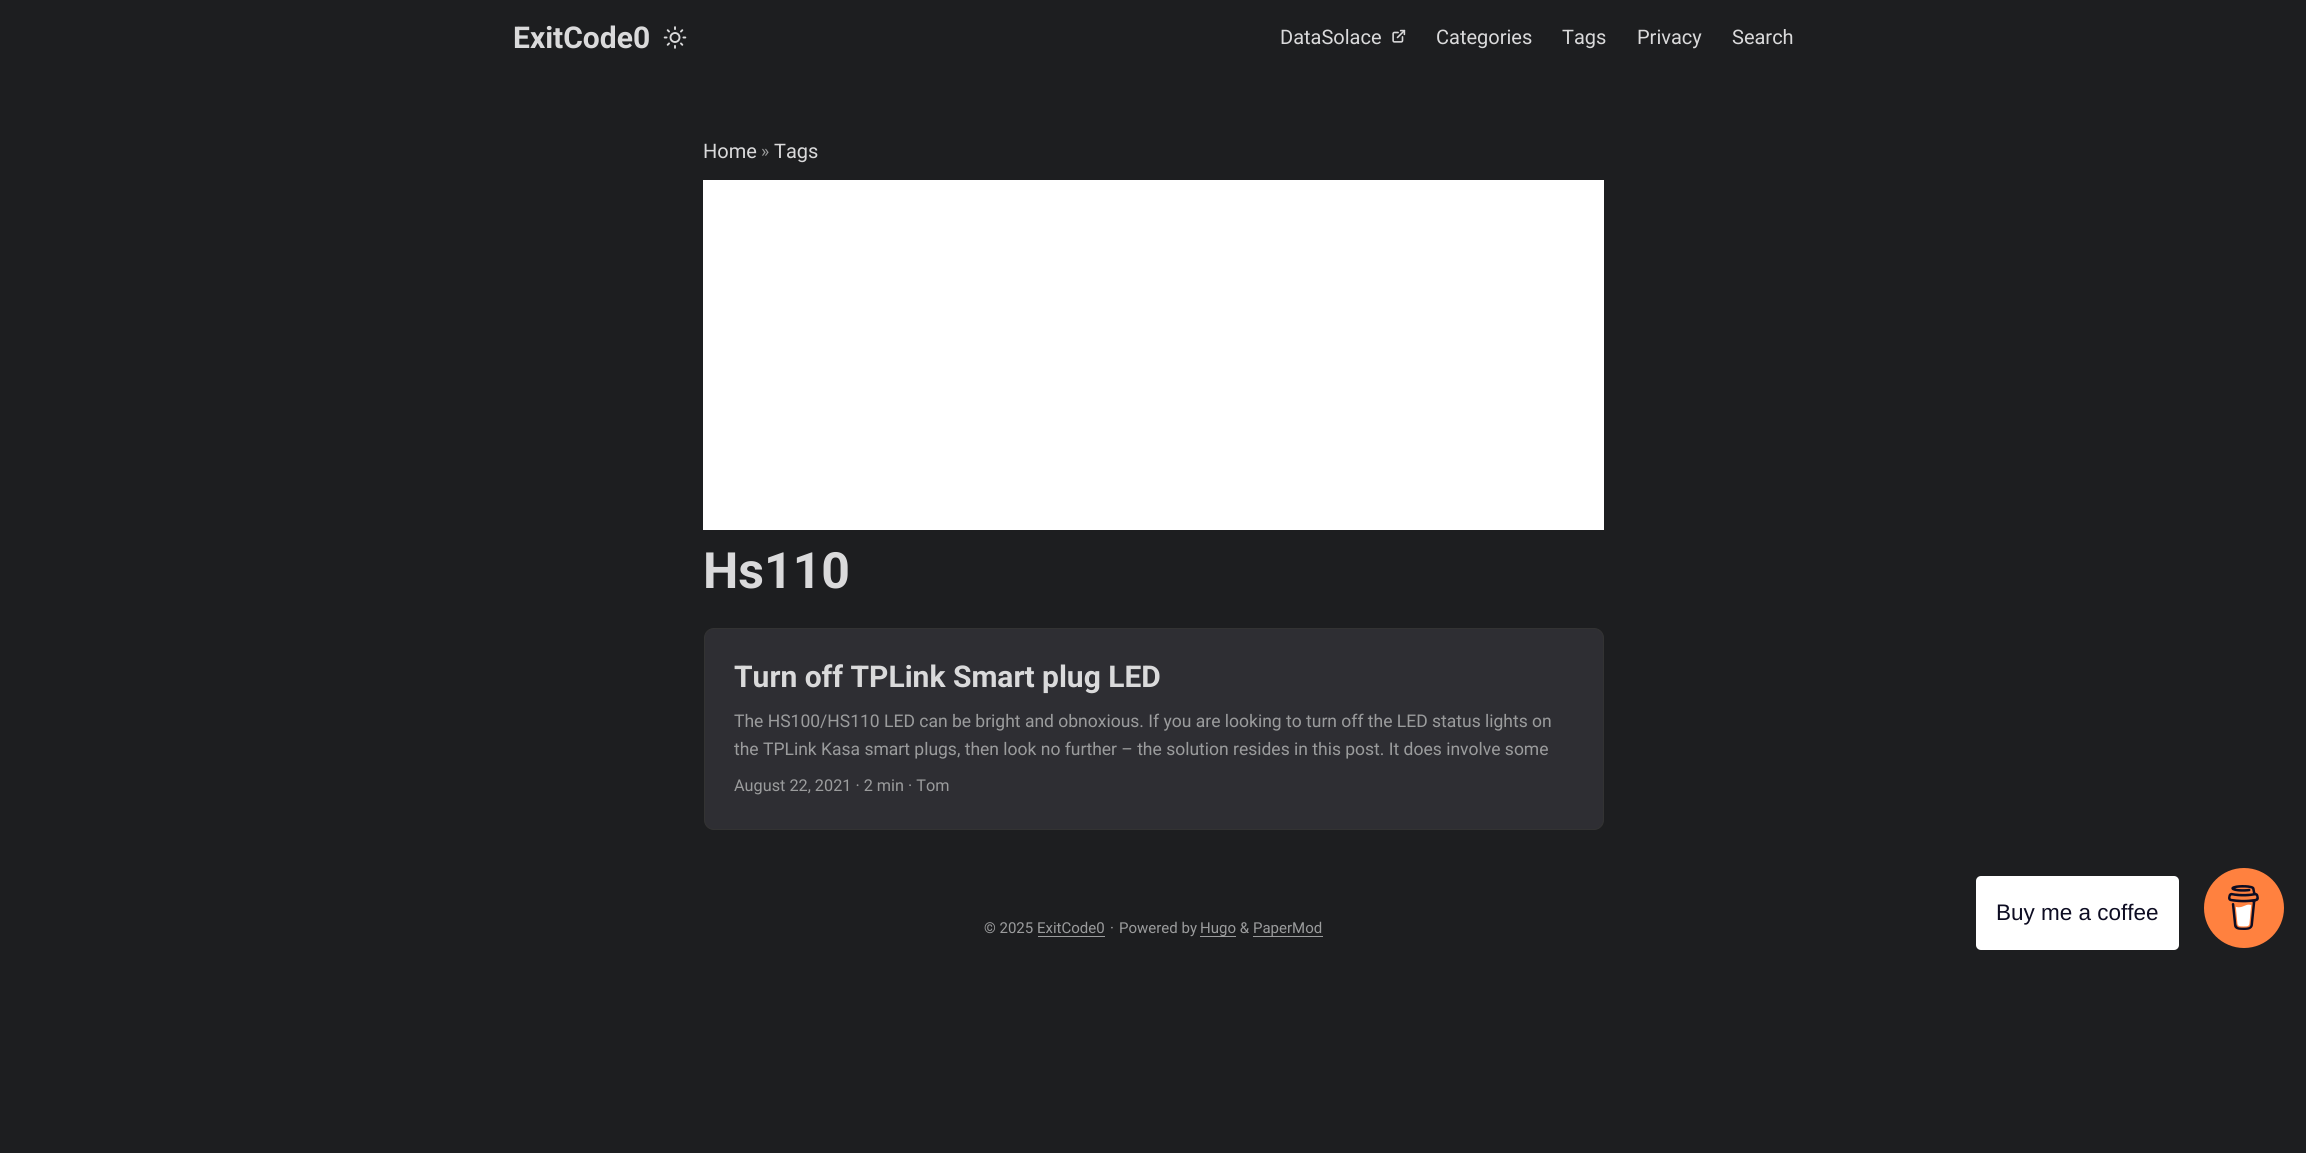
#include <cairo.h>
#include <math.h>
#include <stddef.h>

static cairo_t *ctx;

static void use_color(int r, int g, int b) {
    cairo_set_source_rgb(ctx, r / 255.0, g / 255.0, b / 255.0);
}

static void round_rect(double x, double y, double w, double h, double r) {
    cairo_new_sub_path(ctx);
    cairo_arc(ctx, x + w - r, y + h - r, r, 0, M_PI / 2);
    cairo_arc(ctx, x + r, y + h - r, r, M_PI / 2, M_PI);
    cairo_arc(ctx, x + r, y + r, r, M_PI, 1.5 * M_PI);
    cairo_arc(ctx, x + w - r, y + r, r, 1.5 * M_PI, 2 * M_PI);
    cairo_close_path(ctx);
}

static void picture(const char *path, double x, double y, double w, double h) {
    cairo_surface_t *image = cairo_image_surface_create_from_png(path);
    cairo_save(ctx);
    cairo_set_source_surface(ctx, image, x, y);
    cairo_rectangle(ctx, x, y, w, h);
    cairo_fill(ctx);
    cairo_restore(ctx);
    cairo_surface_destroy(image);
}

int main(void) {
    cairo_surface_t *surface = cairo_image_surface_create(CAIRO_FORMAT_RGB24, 2306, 1153);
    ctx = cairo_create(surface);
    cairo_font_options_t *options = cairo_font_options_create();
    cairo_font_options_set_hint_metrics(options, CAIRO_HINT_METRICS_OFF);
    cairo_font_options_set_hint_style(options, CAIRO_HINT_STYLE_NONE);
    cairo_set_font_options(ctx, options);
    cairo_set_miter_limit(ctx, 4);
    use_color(29, 30, 32);
    cairo_paint(ctx);
    cairo_select_font_face(ctx, "Roboto", CAIRO_FONT_SLANT_NORMAL, CAIRO_FONT_WEIGHT_BOLD);
    cairo_set_font_size(ctx, 30);
    use_color(218, 218, 219);
    cairo_move_to(ctx, 513, 48);
    cairo_show_text(ctx, "ExitCode0");
    picture("img1.png", 663, 26, 24, 23);
    cairo_select_font_face(ctx, "Roboto", CAIRO_FONT_SLANT_NORMAL, CAIRO_FONT_WEIGHT_NORMAL);
    cairo_set_font_size(ctx, 20);
    cairo_move_to(ctx, 1280, 44);
    cairo_show_text(ctx, "DataSolace");
    picture("img2.png", 1392, 29, 14, 14);
    cairo_move_to(ctx, 1436, 44);
    cairo_show_text(ctx, "Categories");
    cairo_move_to(ctx, 1562, 44);
    cairo_show_text(ctx, "Tags");
    cairo_move_to(ctx, 1637, 44);
    cairo_show_text(ctx, "Privacy");
    cairo_move_to(ctx, 1732, 44);
    cairo_show_text(ctx, "Search");
    cairo_move_to(ctx, 703, 158);
    cairo_show_text(ctx, "Home");
    cairo_set_font_size(ctx, 17.5);
    use_color(155, 156, 157);
    cairo_move_to(ctx, 761, 157);
    cairo_show_text(ctx, "»");
    cairo_set_font_size(ctx, 20);
    use_color(218, 218, 219);
    cairo_move_to(ctx, 774, 158);
    cairo_show_text(ctx, "Tags");
    use_color(255, 255, 255);
    cairo_rectangle(ctx, 703, 180, 901, 350);
    cairo_fill(ctx);
    cairo_select_font_face(ctx, "Roboto", CAIRO_FONT_SLANT_NORMAL, CAIRO_FONT_WEIGHT_BOLD);
    cairo_set_font_size(ctx, 50);
    use_color(218, 218, 219);
    cairo_move_to(ctx, 703, 588);
    cairo_show_text(ctx, "Hs110");
    use_color(46, 46, 51);
    round_rect(704.5, 628.5, 899, 201, 9.5);
    cairo_fill_preserve(ctx);
    use_color(51, 51, 51);
    cairo_set_line_width(ctx, 1);
    cairo_stroke(ctx);
    cairo_set_font_size(ctx, 30);
    use_color(218, 218, 219);
    cairo_move_to(ctx, 734, 687);
    cairo_show_text(ctx, "Turn off TPLink Smart plug LED");
    cairo_select_font_face(ctx, "Roboto", CAIRO_FONT_SLANT_NORMAL, CAIRO_FONT_WEIGHT_NORMAL);
    cairo_set_font_size(ctx, 17.5);
    use_color(155, 156, 157);
    cairo_move_to(ctx, 734, 727);
    cairo_show_text(ctx, "The HS100/HS110 LED can be bright and obnoxious. If you are looking to turn off the LED status lights on");
    cairo_move_to(ctx, 734, 755);
    cairo_show_text(ctx, "the TPLink Kasa smart plugs, then look no further – the solution resides in this post. It does involve some");
    cairo_set_font_size(ctx, 16.25);
    cairo_move_to(ctx, 734, 791);
    cairo_show_text(ctx, "August 22, 2021 · 2 min · Tom");
    use_color(255, 255, 255);
    round_rect(1976, 876, 203, 74, 5);
    cairo_fill(ctx);
    cairo_select_font_face(ctx, "Liberation Sans", CAIRO_FONT_SLANT_NORMAL, CAIRO_FONT_WEIGHT_NORMAL);
    cairo_set_font_size(ctx, 22.5);
    use_color(13, 12, 34);
    cairo_move_to(ctx, 1996, 920);
    cairo_show_text(ctx, "Buy me a coffee");
    use_color(255, 129, 63);
    cairo_new_path(ctx);
    cairo_arc(ctx, 2244, 908, 40, 0, 2 * M_PI);
    cairo_fill(ctx);
    picture("img3.png", 2228, 885, 31, 45);
    cairo_select_font_face(ctx, "Roboto", CAIRO_FONT_SLANT_NORMAL, CAIRO_FONT_WEIGHT_NORMAL);
    cairo_set_font_size(ctx, 15);
    use_color(155, 156, 157);
    cairo_move_to(ctx, 984, 933);
    cairo_show_text(ctx, "© 2025 ExitCode0");
    cairo_rectangle(ctx, 1038, 936, 67, 1);
    cairo_fill(ctx);
    cairo_move_to(ctx, 1110, 933);
    cairo_show_text(ctx, "·");
    cairo_move_to(ctx, 1119, 933);
    cairo_show_text(ctx, "Powered by");
    cairo_rectangle(ctx, 1200, 936, 36, 1);
    cairo_fill(ctx);
    cairo_move_to(ctx, 1200, 933);
    cairo_show_text(ctx, "Hugo &");
    cairo_rectangle(ctx, 1253, 936, 70, 1);
    cairo_fill(ctx);
    cairo_move_to(ctx, 1253, 933);
    cairo_show_text(ctx, "PaperMod");
    cairo_surface_write_to_png(surface, "result.png");
    cairo_font_options_destroy(options);
    cairo_destroy(ctx);
    cairo_surface_destroy(surface);
    return 0;
}
